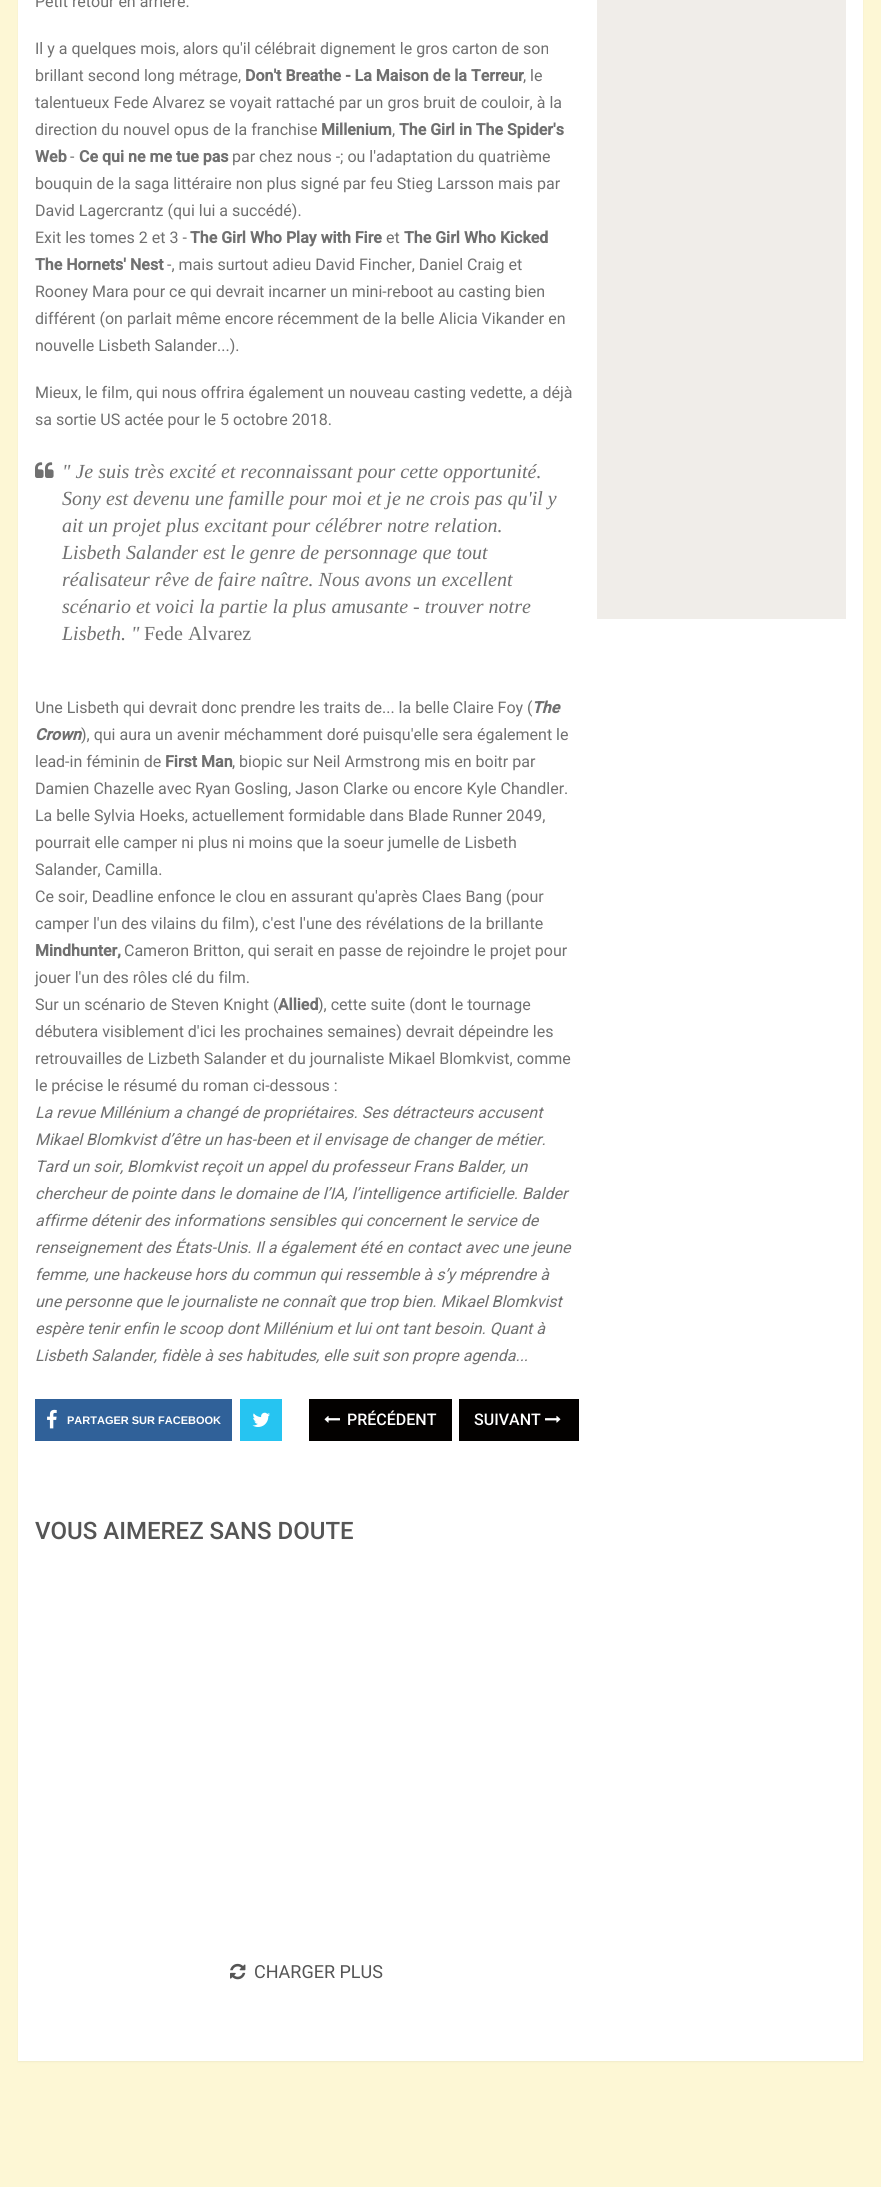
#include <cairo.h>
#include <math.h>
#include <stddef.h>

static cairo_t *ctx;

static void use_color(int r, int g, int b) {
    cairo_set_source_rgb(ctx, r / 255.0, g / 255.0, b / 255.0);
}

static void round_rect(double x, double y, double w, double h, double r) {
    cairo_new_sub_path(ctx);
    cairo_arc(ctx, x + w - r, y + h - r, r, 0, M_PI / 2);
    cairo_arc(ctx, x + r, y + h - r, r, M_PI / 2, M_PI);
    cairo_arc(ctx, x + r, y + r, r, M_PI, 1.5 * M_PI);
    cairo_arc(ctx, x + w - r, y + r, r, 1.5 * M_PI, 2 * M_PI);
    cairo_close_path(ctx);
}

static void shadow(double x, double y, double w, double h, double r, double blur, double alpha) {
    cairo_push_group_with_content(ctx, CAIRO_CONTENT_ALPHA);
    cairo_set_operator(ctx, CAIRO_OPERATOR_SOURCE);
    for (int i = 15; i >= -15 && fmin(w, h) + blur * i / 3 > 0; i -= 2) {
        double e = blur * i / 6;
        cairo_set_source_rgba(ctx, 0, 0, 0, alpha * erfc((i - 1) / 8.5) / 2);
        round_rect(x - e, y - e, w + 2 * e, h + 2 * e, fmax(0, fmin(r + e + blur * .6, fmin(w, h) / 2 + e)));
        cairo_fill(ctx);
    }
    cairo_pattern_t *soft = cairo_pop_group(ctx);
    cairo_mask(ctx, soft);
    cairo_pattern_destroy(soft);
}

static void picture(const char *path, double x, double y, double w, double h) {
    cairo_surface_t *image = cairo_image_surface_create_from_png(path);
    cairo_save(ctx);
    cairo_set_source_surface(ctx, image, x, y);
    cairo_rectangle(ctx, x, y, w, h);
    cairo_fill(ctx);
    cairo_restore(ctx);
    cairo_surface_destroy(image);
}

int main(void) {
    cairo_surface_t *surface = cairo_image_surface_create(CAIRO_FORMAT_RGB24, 881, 2187);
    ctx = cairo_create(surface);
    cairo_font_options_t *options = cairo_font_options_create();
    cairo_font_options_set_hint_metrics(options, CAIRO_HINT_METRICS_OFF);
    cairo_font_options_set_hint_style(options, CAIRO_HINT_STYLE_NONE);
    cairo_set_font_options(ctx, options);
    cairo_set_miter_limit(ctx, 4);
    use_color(253, 247, 213);
    cairo_paint(ctx);
    use_color(0, 0, 0);
    shadow(18, -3, 845, 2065, 0, 1, 0.05);
    use_color(255, 255, 255);
    cairo_rectangle(ctx, 18, 0, 845, 2061);
    cairo_fill(ctx);
    cairo_select_font_face(ctx, "Roboto", CAIRO_FONT_SLANT_NORMAL, CAIRO_FONT_WEIGHT_NORMAL);
    cairo_set_font_size(ctx, 16);
    use_color(112, 112, 112);
    cairo_move_to(ctx, 35, 7);
    cairo_show_text(ctx, "Petit retour en arrière.");
    cairo_move_to(ctx, 35, 54);
    cairo_show_text(ctx, "Il y a quelques mois, alors qu'il célébrait dignement le gros carton de son");
    cairo_move_to(ctx, 35, 81);
    cairo_show_text(ctx, "brillant second long métrage,");
    cairo_select_font_face(ctx, "Roboto", CAIRO_FONT_SLANT_NORMAL, CAIRO_FONT_WEIGHT_BOLD);
    cairo_move_to(ctx, 245, 81);
    cairo_show_text(ctx, "Don't Breathe - La Maison de la Terreur");
    cairo_select_font_face(ctx, "Roboto", CAIRO_FONT_SLANT_NORMAL, CAIRO_FONT_WEIGHT_NORMAL);
    cairo_move_to(ctx, 523, 81);
    cairo_show_text(ctx, ", le");
    cairo_move_to(ctx, 35, 108);
    cairo_show_text(ctx, "talentueux Fede Alvarez se voyait rattaché par un gros bruit de couloir, à la");
    cairo_move_to(ctx, 35, 135);
    cairo_show_text(ctx, "direction du nouvel opus de la franchise");
    cairo_select_font_face(ctx, "Roboto", CAIRO_FONT_SLANT_NORMAL, CAIRO_FONT_WEIGHT_BOLD);
    cairo_move_to(ctx, 321, 135);
    cairo_show_text(ctx, "Millenium");
    cairo_select_font_face(ctx, "Roboto", CAIRO_FONT_SLANT_NORMAL, CAIRO_FONT_WEIGHT_NORMAL);
    cairo_move_to(ctx, 392, 135);
    cairo_show_text(ctx, ",");
    cairo_select_font_face(ctx, "Roboto", CAIRO_FONT_SLANT_NORMAL, CAIRO_FONT_WEIGHT_BOLD);
    cairo_move_to(ctx, 399, 135);
    cairo_show_text(ctx, "The Girl in The Spider's");
    cairo_move_to(ctx, 35, 162);
    cairo_show_text(ctx, "Web");
    cairo_select_font_face(ctx, "Roboto", CAIRO_FONT_SLANT_NORMAL, CAIRO_FONT_WEIGHT_NORMAL);
    cairo_move_to(ctx, 70, 162);
    cairo_show_text(ctx, "-");
    cairo_select_font_face(ctx, "Roboto", CAIRO_FONT_SLANT_NORMAL, CAIRO_FONT_WEIGHT_BOLD);
    cairo_move_to(ctx, 79, 162);
    cairo_show_text(ctx, "Ce qui ne me tue pas");
    cairo_select_font_face(ctx, "Roboto", CAIRO_FONT_SLANT_NORMAL, CAIRO_FONT_WEIGHT_NORMAL);
    cairo_move_to(ctx, 232, 162);
    cairo_show_text(ctx, "par chez nous -; ou l'adaptation du quatrième");
    cairo_move_to(ctx, 35, 189);
    cairo_show_text(ctx, "bouquin de la saga littéraire non plus signé par feu Stieg Larsson mais par");
    cairo_move_to(ctx, 35, 216);
    cairo_show_text(ctx, "David Lagercrantz (qui lui a succédé).");
    cairo_move_to(ctx, 35, 243);
    cairo_show_text(ctx, "Exit les tomes 2 et 3 -");
    cairo_select_font_face(ctx, "Roboto", CAIRO_FONT_SLANT_NORMAL, CAIRO_FONT_WEIGHT_BOLD);
    cairo_move_to(ctx, 190, 243);
    cairo_show_text(ctx, "The Girl Who Play with Fire");
    cairo_select_font_face(ctx, "Roboto", CAIRO_FONT_SLANT_NORMAL, CAIRO_FONT_WEIGHT_NORMAL);
    cairo_move_to(ctx, 386, 243);
    cairo_show_text(ctx, "et");
    cairo_select_font_face(ctx, "Roboto", CAIRO_FONT_SLANT_NORMAL, CAIRO_FONT_WEIGHT_BOLD);
    cairo_move_to(ctx, 404, 243);
    cairo_show_text(ctx, "The Girl Who Kicked");
    cairo_move_to(ctx, 35, 270);
    cairo_show_text(ctx, "The Hornets' Nest");
    cairo_select_font_face(ctx, "Roboto", CAIRO_FONT_SLANT_NORMAL, CAIRO_FONT_WEIGHT_NORMAL);
    cairo_move_to(ctx, 167, 270);
    cairo_show_text(ctx, "-, mais surtout adieu David Fincher, Daniel Craig et");
    cairo_move_to(ctx, 35, 297);
    cairo_show_text(ctx, "Rooney Mara pour ce qui devrait incarner un mini-reboot au casting bien");
    cairo_move_to(ctx, 35, 324);
    cairo_show_text(ctx, "différent (on parlait même encore récemment de la belle Alicia Vikander en");
    cairo_move_to(ctx, 35, 351);
    cairo_show_text(ctx, "nouvelle Lisbeth Salander...).");
    cairo_move_to(ctx, 35, 398);
    cairo_show_text(ctx, "Mieux, le film, qui nous offrira également un nouveau casting vedette, a déjà");
    cairo_move_to(ctx, 35, 425);
    cairo_show_text(ctx, "sa sortie US actée pour le 5 octobre 2018.");
    picture("img1.png", 35, 462, 19, 16);
    cairo_select_font_face(ctx, "Liberation Serif", CAIRO_FONT_SLANT_ITALIC, CAIRO_FONT_WEIGHT_NORMAL);
    cairo_set_font_size(ctx, 20);
    cairo_move_to(ctx, 62, 478);
    cairo_show_text(ctx, "\" Je suis très excité et reconnaissant pour cette opportunité.");
    cairo_move_to(ctx, 62, 505);
    cairo_show_text(ctx, "Sony est devenu une famille pour moi et je ne crois pas qu'il y");
    cairo_move_to(ctx, 62, 532);
    cairo_show_text(ctx, "ait un projet plus excitant pour célébrer notre relation.");
    cairo_move_to(ctx, 62, 559);
    cairo_show_text(ctx, "Lisbeth Salander est le genre de personnage que tout");
    cairo_move_to(ctx, 62, 586);
    cairo_show_text(ctx, "réalisateur rêve de faire naître. Nous avons un excellent");
    cairo_move_to(ctx, 62, 613);
    cairo_show_text(ctx, "scénario et voici la partie la plus amusante - trouver notre");
    cairo_move_to(ctx, 62, 640);
    cairo_show_text(ctx, "Lisbeth. \"");
    cairo_select_font_face(ctx, "Liberation Serif", CAIRO_FONT_SLANT_NORMAL, CAIRO_FONT_WEIGHT_NORMAL);
    cairo_move_to(ctx, 144, 640);
    cairo_show_text(ctx, "Fede Alvarez");
    cairo_select_font_face(ctx, "Roboto", CAIRO_FONT_SLANT_NORMAL, CAIRO_FONT_WEIGHT_NORMAL);
    cairo_set_font_size(ctx, 16);
    cairo_move_to(ctx, 35, 713);
    cairo_show_text(ctx, "Une Lisbeth qui devrait donc prendre les traits de... la belle Claire Foy (");
    cairo_select_font_face(ctx, "Roboto", CAIRO_FONT_SLANT_ITALIC, CAIRO_FONT_WEIGHT_BOLD);
    cairo_move_to(ctx, 532, 713);
    cairo_show_text(ctx, "The");
    cairo_move_to(ctx, 35, 740);
    cairo_show_text(ctx, "Crown");
    cairo_select_font_face(ctx, "Roboto", CAIRO_FONT_SLANT_NORMAL, CAIRO_FONT_WEIGHT_NORMAL);
    cairo_move_to(ctx, 81, 740);
    cairo_show_text(ctx, "), qui aura un avenir méchamment doré puisqu'elle sera également le");
    cairo_move_to(ctx, 35, 767);
    cairo_show_text(ctx, "lead-in féminin de");
    cairo_select_font_face(ctx, "Roboto", CAIRO_FONT_SLANT_NORMAL, CAIRO_FONT_WEIGHT_BOLD);
    cairo_move_to(ctx, 165, 767);
    cairo_show_text(ctx, "First Man");
    cairo_select_font_face(ctx, "Roboto", CAIRO_FONT_SLANT_NORMAL, CAIRO_FONT_WEIGHT_NORMAL);
    cairo_move_to(ctx, 232, 767);
    cairo_show_text(ctx, ", biopic sur Neil Armstrong mis en boitr par");
    cairo_move_to(ctx, 35, 794);
    cairo_show_text(ctx, "Damien Chazelle avec Ryan Gosling, Jason Clarke ou encore Kyle Chandler.");
    cairo_move_to(ctx, 35, 821);
    cairo_show_text(ctx, "La belle Sylvia Hoeks, actuellement formidable dans Blade Runner 2049,");
    cairo_move_to(ctx, 35, 848);
    cairo_show_text(ctx, "pourrait elle camper ni plus ni moins que la soeur jumelle de Lisbeth");
    cairo_move_to(ctx, 35, 875);
    cairo_show_text(ctx, "Salander, Camilla.");
    cairo_move_to(ctx, 35, 902);
    cairo_show_text(ctx, "Ce soir, Deadline enfonce le clou en assurant qu'après Claes Bang (pour");
    cairo_move_to(ctx, 35, 929);
    cairo_show_text(ctx, "camper l'un des vilains du film), c'est l'une des révélations de la brillante");
    cairo_select_font_face(ctx, "Roboto", CAIRO_FONT_SLANT_NORMAL, CAIRO_FONT_WEIGHT_BOLD);
    cairo_move_to(ctx, 35, 956);
    cairo_show_text(ctx, "Mindhunter,");
    cairo_select_font_face(ctx, "Roboto", CAIRO_FONT_SLANT_NORMAL, CAIRO_FONT_WEIGHT_NORMAL);
    cairo_move_to(ctx, 124, 956);
    cairo_show_text(ctx, "Cameron Britton, qui serait en passe de rejoindre le projet pour");
    cairo_move_to(ctx, 35, 983);
    cairo_show_text(ctx, "jouer l'un des rôles clé du film.");
    cairo_move_to(ctx, 35, 1010);
    cairo_show_text(ctx, "Sur un scénario de Steven Knight (");
    cairo_select_font_face(ctx, "Roboto", CAIRO_FONT_SLANT_NORMAL, CAIRO_FONT_WEIGHT_BOLD);
    cairo_move_to(ctx, 278, 1010);
    cairo_show_text(ctx, "Allied");
    cairo_select_font_face(ctx, "Roboto", CAIRO_FONT_SLANT_NORMAL, CAIRO_FONT_WEIGHT_NORMAL);
    cairo_move_to(ctx, 318, 1010);
    cairo_show_text(ctx, "), cette suite (dont le tournage");
    cairo_move_to(ctx, 35, 1037);
    cairo_show_text(ctx, "débutera visiblement d'ici les prochaines semaines) devrait dépeindre les");
    cairo_move_to(ctx, 35, 1064);
    cairo_show_text(ctx, "retrouvailles de Lizbeth Salander et du journaliste Mikael Blomkvist, comme");
    cairo_move_to(ctx, 35, 1091);
    cairo_show_text(ctx, "le précise le résumé du roman ci-dessous :");
    cairo_select_font_face(ctx, "Roboto", CAIRO_FONT_SLANT_ITALIC, CAIRO_FONT_WEIGHT_NORMAL);
    cairo_move_to(ctx, 35, 1118);
    cairo_show_text(ctx, "La revue Millénium a changé de propriétaires. Ses détracteurs accusent");
    cairo_move_to(ctx, 35, 1145);
    cairo_show_text(ctx, "Mikael Blomkvist d’être un has-been et il envisage de changer de métier.");
    cairo_move_to(ctx, 35, 1172);
    cairo_show_text(ctx, "Tard un soir, Blomkvist reçoit un appel du professeur Frans Balder, un");
    cairo_move_to(ctx, 35, 1199);
    cairo_show_text(ctx, "chercheur de pointe dans le domaine de l’IA, l’intelligence artificielle. Balder");
    cairo_move_to(ctx, 35, 1226);
    cairo_show_text(ctx, "affirme détenir des informations sensibles qui concernent le service de");
    cairo_move_to(ctx, 35, 1253);
    cairo_show_text(ctx, "renseignement des États-Unis. Il a également été en contact avec une jeune");
    cairo_move_to(ctx, 35, 1280);
    cairo_show_text(ctx, "femme, une hackeuse hors du commun qui ressemble à s’y méprendre à");
    cairo_move_to(ctx, 35, 1307);
    cairo_show_text(ctx, "une personne que le journaliste ne connaît que trop bien. Mikael Blomkvist");
    cairo_move_to(ctx, 35, 1334);
    cairo_show_text(ctx, "espère tenir enfin le scoop dont Millénium et lui ont tant besoin. Quant à");
    cairo_move_to(ctx, 35, 1361);
    cairo_show_text(ctx, "Lisbeth Salander, fidèle à ses habitudes, elle suit son propre agenda...");
    use_color(48, 97, 153);
    cairo_rectangle(ctx, 35, 1399, 197, 42);
    cairo_fill(ctx);
    picture("img2.png", 47, 1409, 10, 20);
    cairo_select_font_face(ctx, "Liberation Sans", CAIRO_FONT_SLANT_NORMAL, CAIRO_FONT_WEIGHT_BOLD);
    cairo_set_font_size(ctx, 11);
    use_color(255, 255, 255);
    cairo_move_to(ctx, 67, 1424);
    cairo_show_text(ctx, "PARTAGER SUR FACEBOOK");
    use_color(38, 196, 241);
    cairo_rectangle(ctx, 240, 1399, 42, 42);
    cairo_fill(ctx);
    picture("img3.png", 252, 1412, 18, 15);
    use_color(3, 1, 0);
    cairo_rectangle(ctx, 309, 1399, 143, 42);
    cairo_fill(ctx);
    picture("img4.png", 324, 1415, 16, 8);
    cairo_select_font_face(ctx, "Roboto Medium", CAIRO_FONT_SLANT_NORMAL, CAIRO_FONT_WEIGHT_NORMAL);
    cairo_set_font_size(ctx, 16);
    use_color(255, 255, 255);
    cairo_move_to(ctx, 347, 1425);
    cairo_show_text(ctx, "PRÉCÉDENT");
    use_color(3, 1, 0);
    cairo_rectangle(ctx, 459, 1399, 120, 42);
    cairo_fill(ctx);
    use_color(255, 255, 255);
    cairo_move_to(ctx, 474, 1425);
    cairo_show_text(ctx, "SUIVANT");
    picture("img5.png", 545, 1415, 16, 8);
    cairo_set_font_size(ctx, 24);
    use_color(85, 85, 85);
    cairo_move_to(ctx, 35, 1539);
    cairo_show_text(ctx, "VOUS AIMEREZ SANS DOUTE");
    picture("img6.png", 230, 1963, 16, 17);
    cairo_select_font_face(ctx, "Roboto", CAIRO_FONT_SLANT_NORMAL, CAIRO_FONT_WEIGHT_NORMAL);
    cairo_set_font_size(ctx, 18);
    cairo_move_to(ctx, 254, 1978);
    cairo_show_text(ctx, "CHARGER PLUS");
    use_color(240, 237, 233);
    cairo_rectangle(ctx, 597, 0, 249, 619);
    cairo_fill(ctx);
    cairo_surface_write_to_png(surface, "result.png");
    cairo_font_options_destroy(options);
    cairo_destroy(ctx);
    cairo_surface_destroy(surface);
    return 0;
}
